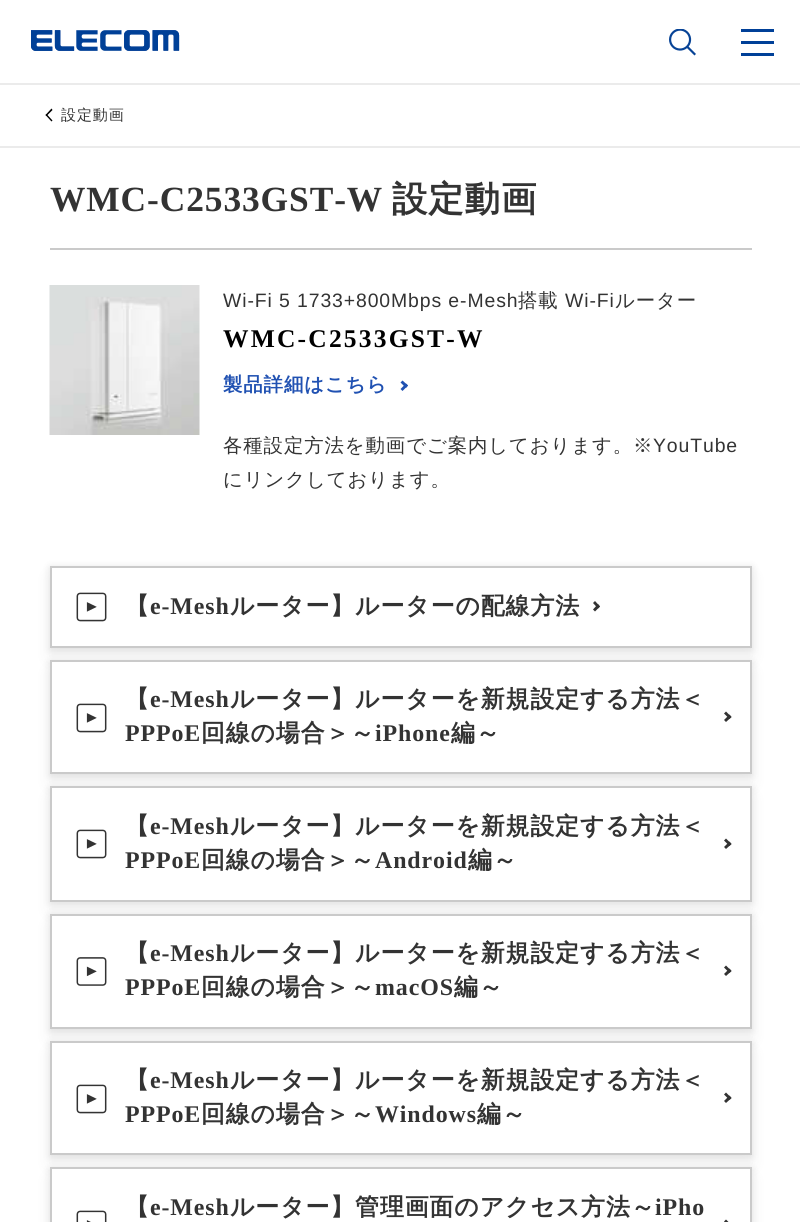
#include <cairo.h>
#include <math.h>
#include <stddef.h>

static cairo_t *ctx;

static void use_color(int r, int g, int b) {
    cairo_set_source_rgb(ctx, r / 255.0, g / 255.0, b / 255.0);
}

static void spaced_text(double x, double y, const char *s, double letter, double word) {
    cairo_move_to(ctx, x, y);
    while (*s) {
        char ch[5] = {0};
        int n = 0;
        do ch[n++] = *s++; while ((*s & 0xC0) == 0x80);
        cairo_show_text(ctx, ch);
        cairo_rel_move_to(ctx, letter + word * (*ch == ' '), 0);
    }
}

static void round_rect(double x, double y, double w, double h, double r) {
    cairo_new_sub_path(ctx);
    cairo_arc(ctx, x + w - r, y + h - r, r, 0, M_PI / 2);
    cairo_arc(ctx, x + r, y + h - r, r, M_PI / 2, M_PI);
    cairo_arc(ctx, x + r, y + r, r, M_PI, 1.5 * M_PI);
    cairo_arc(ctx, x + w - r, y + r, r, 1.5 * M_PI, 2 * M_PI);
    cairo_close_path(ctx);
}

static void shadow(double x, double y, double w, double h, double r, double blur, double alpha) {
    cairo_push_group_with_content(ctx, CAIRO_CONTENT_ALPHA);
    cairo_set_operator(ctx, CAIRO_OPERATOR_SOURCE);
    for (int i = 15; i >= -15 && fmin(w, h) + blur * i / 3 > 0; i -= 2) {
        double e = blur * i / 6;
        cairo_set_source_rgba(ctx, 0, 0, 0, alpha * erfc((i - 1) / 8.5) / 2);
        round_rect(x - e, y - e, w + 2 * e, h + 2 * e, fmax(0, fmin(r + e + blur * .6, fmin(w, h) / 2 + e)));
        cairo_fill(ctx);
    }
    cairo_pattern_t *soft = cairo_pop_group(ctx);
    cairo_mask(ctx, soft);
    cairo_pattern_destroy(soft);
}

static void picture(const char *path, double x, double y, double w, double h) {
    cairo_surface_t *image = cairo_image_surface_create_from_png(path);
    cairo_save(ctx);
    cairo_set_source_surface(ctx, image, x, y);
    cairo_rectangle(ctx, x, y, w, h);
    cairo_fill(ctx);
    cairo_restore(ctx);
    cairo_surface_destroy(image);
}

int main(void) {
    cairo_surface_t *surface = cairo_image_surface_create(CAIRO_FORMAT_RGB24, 800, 1222);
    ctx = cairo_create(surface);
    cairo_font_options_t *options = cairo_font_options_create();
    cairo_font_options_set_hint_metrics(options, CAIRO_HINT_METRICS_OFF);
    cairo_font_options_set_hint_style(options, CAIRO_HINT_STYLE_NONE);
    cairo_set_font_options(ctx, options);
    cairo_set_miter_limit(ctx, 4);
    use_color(255, 255, 255);
    cairo_paint(ctx);
    use_color(235, 235, 235);
    cairo_rectangle(ctx, 0, 83, 800, 2);
    cairo_fill(ctx);
    picture("img1.png", 31, 30, 149, 21);
    picture("img2.png", 669, 29, 27, 27);
    use_color(0, 64, 152);
    cairo_rectangle(ctx, 741, 29, 33, 3);
    cairo_fill(ctx);
    cairo_rectangle(ctx, 741, 41, 33, 3);
    cairo_fill(ctx);
    cairo_rectangle(ctx, 741, 53, 33, 3);
    cairo_fill(ctx);
    use_color(235, 235, 235);
    cairo_rectangle(ctx, 0, 146, 800, 2);
    cairo_fill(ctx);
    use_color(0, 0, 0);
    cairo_new_path(ctx);
    cairo_move_to(ctx, 51.5, 121.5);
    cairo_line_to(ctx, 45.5, 115);
    cairo_line_to(ctx, 46.5, 114);
    cairo_line_to(ctx, 52.5, 120.5);
    cairo_close_path(ctx);
    cairo_fill(ctx);
    cairo_new_path(ctx);
    cairo_move_to(ctx, 46.5, 116);
    cairo_line_to(ctx, 45.5, 115);
    cairo_line_to(ctx, 51.5, 108.5);
    cairo_line_to(ctx, 52.5, 110);
    cairo_close_path(ctx);
    cairo_fill(ctx);
    cairo_select_font_face(ctx, "WenQuanYi Zen Hei Medium", CAIRO_FONT_SLANT_NORMAL, CAIRO_FONT_WEIGHT_NORMAL);
    cairo_set_font_size(ctx, 15);
    use_color(51, 51, 51);
    spaced_text(61, 120, "設定動画", 0.9, 0);
    cairo_select_font_face(ctx, "Liberation Serif", CAIRO_FONT_SLANT_NORMAL, CAIRO_FONT_WEIGHT_BOLD);
    cairo_set_font_size(ctx, 35.4);
    spaced_text(50, 211, "WMC-C2533GST-W", 0.9, 0);
    cairo_select_font_face(ctx, "WenQuanYi Zen Hei", CAIRO_FONT_SLANT_NORMAL, CAIRO_FONT_WEIGHT_BOLD);
    spaced_text(392, 211, "設定動画", 0.9, 0);
    use_color(202, 202, 202);
    cairo_rectangle(ctx, 50, 248, 702, 2);
    cairo_fill(ctx);
    picture("img3.png", 49, 285, 151, 150);
    cairo_select_font_face(ctx, "Liberation Sans", CAIRO_FONT_SLANT_NORMAL, CAIRO_FONT_WEIGHT_NORMAL);
    cairo_set_font_size(ctx, 19.4);
    use_color(51, 51, 51);
    spaced_text(223, 307, "Wi-Fi 5 1733+800Mbps e-Mesh", 0.9, 0);
    cairo_select_font_face(ctx, "WenQuanYi Zen Hei Medium", CAIRO_FONT_SLANT_NORMAL, CAIRO_FONT_WEIGHT_NORMAL);
    spaced_text(518, 307, "搭載", 0.9, 0);
    cairo_select_font_face(ctx, "Liberation Sans", CAIRO_FONT_SLANT_NORMAL, CAIRO_FONT_WEIGHT_NORMAL);
    spaced_text(565, 307, "Wi-Fi", 0.9, 0);
    cairo_select_font_face(ctx, "WenQuanYi Zen Hei Medium", CAIRO_FONT_SLANT_NORMAL, CAIRO_FONT_WEIGHT_NORMAL);
    spaced_text(615, 307, "ルーター", 0.9, 0);
    cairo_select_font_face(ctx, "Liberation Serif", CAIRO_FONT_SLANT_NORMAL, CAIRO_FONT_WEIGHT_BOLD);
    cairo_set_font_size(ctx, 25.5);
    use_color(0, 0, 0);
    spaced_text(223, 347, "WMC-C2533GST-W", 2.2, 0);
    cairo_select_font_face(ctx, "WenQuanYi Zen Hei", CAIRO_FONT_SLANT_NORMAL, CAIRO_FONT_WEIGHT_BOLD);
    cairo_set_font_size(ctx, 19.4);
    use_color(32, 81, 178);
    spaced_text(223, 391, "製品詳細はこちら", 0.9, 0);
    cairo_new_path(ctx);
    cairo_move_to(ctx, 402.5, 380.5);
    cairo_line_to(ctx, 408, 385.5);
    cairo_line_to(ctx, 406, 388);
    cairo_line_to(ctx, 400.5, 382.5);
    cairo_close_path(ctx);
    cairo_fill(ctx);
    cairo_new_path(ctx);
    cairo_move_to(ctx, 406, 383.5);
    cairo_line_to(ctx, 408, 385.5);
    cairo_line_to(ctx, 402.5, 391);
    cairo_line_to(ctx, 400.5, 389);
    cairo_close_path(ctx);
    cairo_fill(ctx);
    cairo_select_font_face(ctx, "WenQuanYi Zen Hei Medium", CAIRO_FONT_SLANT_NORMAL, CAIRO_FONT_WEIGHT_NORMAL);
    use_color(51, 51, 51);
    spaced_text(223, 452, "各種設定方法を動画でご案内しております。※", 0.9, 0);
    cairo_select_font_face(ctx, "Liberation Sans", CAIRO_FONT_SLANT_NORMAL, CAIRO_FONT_WEIGHT_NORMAL);
    spaced_text(653, 452, "YouTube", 0.9, 0);
    cairo_select_font_face(ctx, "WenQuanYi Zen Hei Medium", CAIRO_FONT_SLANT_NORMAL, CAIRO_FONT_WEIGHT_NORMAL);
    spaced_text(223, 486, "にリンクしております。", 0.9, 0);
    use_color(0, 0, 0);
    shadow(50, 567, 702, 83, 0, 4, 0.1);
    shadow(50, 576, 702, 83, 0, 8, 0.05);
    use_color(255, 255, 255);
    cairo_rectangle(ctx, 51, 567, 700, 80);
    cairo_fill_preserve(ctx);
    use_color(202, 202, 202);
    cairo_stroke(ctx);
    picture("img4.png", 76, 592, 31, 30);
    cairo_select_font_face(ctx, "WenQuanYi Zen Hei", CAIRO_FONT_SLANT_NORMAL, CAIRO_FONT_WEIGHT_BOLD);
    cairo_set_font_size(ctx, 23.9);
    use_color(51, 51, 51);
    spaced_text(125, 614, "【", 0.9, 0);
    cairo_select_font_face(ctx, "Liberation Serif", CAIRO_FONT_SLANT_NORMAL, CAIRO_FONT_WEIGHT_BOLD);
    spaced_text(150, 614, "e-Mesh", 0.9, 0);
    cairo_select_font_face(ctx, "WenQuanYi Zen Hei", CAIRO_FONT_SLANT_NORMAL, CAIRO_FONT_WEIGHT_BOLD);
    spaced_text(230, 614, "ルーター】ルーターの配線方法", 0.9, 0);
    cairo_new_path(ctx);
    cairo_move_to(ctx, 595, 601);
    cairo_line_to(ctx, 600, 606.5);
    cairo_line_to(ctx, 598, 608.5);
    cairo_line_to(ctx, 593, 603);
    cairo_close_path(ctx);
    cairo_fill(ctx);
    cairo_new_path(ctx);
    cairo_move_to(ctx, 598, 604);
    cairo_line_to(ctx, 600, 606.5);
    cairo_line_to(ctx, 595, 611.5);
    cairo_line_to(ctx, 593, 609.5);
    cairo_close_path(ctx);
    cairo_fill(ctx);
    use_color(0, 0, 0);
    shadow(50, 662, 702, 114, 0, 4, 0.1);
    shadow(50, 671, 702, 114, 0, 8, 0.05);
    use_color(255, 255, 255);
    cairo_rectangle(ctx, 51, 661, 700, 112);
    cairo_fill_preserve(ctx);
    use_color(202, 202, 202);
    cairo_stroke(ctx);
    picture("img4.png", 76, 703, 31, 30);
    use_color(51, 51, 51);
    spaced_text(125, 707, "【", 0.9, 0);
    cairo_select_font_face(ctx, "Liberation Serif", CAIRO_FONT_SLANT_NORMAL, CAIRO_FONT_WEIGHT_BOLD);
    spaced_text(150, 707, "e-Mesh", 0.9, 0);
    cairo_select_font_face(ctx, "WenQuanYi Zen Hei", CAIRO_FONT_SLANT_NORMAL, CAIRO_FONT_WEIGHT_BOLD);
    spaced_text(230, 707, "ルーター】ルーターを新規設定する方法＜", 0.9, 0);
    cairo_new_path(ctx);
    cairo_move_to(ctx, 726, 711.5);
    cairo_line_to(ctx, 731.5, 717);
    cairo_line_to(ctx, 729.5, 719);
    cairo_line_to(ctx, 724, 713.5);
    cairo_close_path(ctx);
    cairo_fill(ctx);
    cairo_new_path(ctx);
    cairo_move_to(ctx, 729.5, 714.5);
    cairo_line_to(ctx, 731.5, 717);
    cairo_line_to(ctx, 726, 722);
    cairo_line_to(ctx, 724, 720);
    cairo_close_path(ctx);
    cairo_fill(ctx);
    cairo_select_font_face(ctx, "Liberation Serif", CAIRO_FONT_SLANT_NORMAL, CAIRO_FONT_WEIGHT_BOLD);
    spaced_text(125, 741, "PPPoE", 0.9, 0);
    cairo_select_font_face(ctx, "WenQuanYi Zen Hei", CAIRO_FONT_SLANT_NORMAL, CAIRO_FONT_WEIGHT_BOLD);
    spaced_text(201, 741, "回線の場合＞～", 0.9, 0);
    cairo_select_font_face(ctx, "Liberation Serif", CAIRO_FONT_SLANT_NORMAL, CAIRO_FONT_WEIGHT_BOLD);
    spaced_text(375, 741, "iPhone", 0.9, 0);
    cairo_select_font_face(ctx, "WenQuanYi Zen Hei", CAIRO_FONT_SLANT_NORMAL, CAIRO_FONT_WEIGHT_BOLD);
    spaced_text(451, 741, "編～", 0.9, 0);
    use_color(0, 0, 0);
    shadow(50, 788, 702, 115, 0, 4, 0.1);
    shadow(50, 797, 702, 115, 0, 8, 0.05);
    use_color(255, 255, 255);
    cairo_rectangle(ctx, 51, 787, 700, 114);
    cairo_fill_preserve(ctx);
    use_color(202, 202, 202);
    cairo_stroke(ctx);
    picture("img4.png", 76, 829, 31, 30);
    use_color(51, 51, 51);
    spaced_text(125, 834, "【", 0.9, 0);
    cairo_select_font_face(ctx, "Liberation Serif", CAIRO_FONT_SLANT_NORMAL, CAIRO_FONT_WEIGHT_BOLD);
    spaced_text(150, 834, "e-Mesh", 0.9, 0);
    cairo_select_font_face(ctx, "WenQuanYi Zen Hei", CAIRO_FONT_SLANT_NORMAL, CAIRO_FONT_WEIGHT_BOLD);
    spaced_text(230, 834, "ルーター】ルーターを新規設定する方法＜", 0.9, 0);
    cairo_new_path(ctx);
    cairo_move_to(ctx, 726, 838.5);
    cairo_line_to(ctx, 731.5, 844);
    cairo_line_to(ctx, 729.5, 846);
    cairo_line_to(ctx, 724, 840.5);
    cairo_close_path(ctx);
    cairo_fill(ctx);
    cairo_new_path(ctx);
    cairo_move_to(ctx, 729.5, 841.5);
    cairo_line_to(ctx, 731.5, 844);
    cairo_line_to(ctx, 726, 849);
    cairo_line_to(ctx, 724, 847);
    cairo_close_path(ctx);
    cairo_fill(ctx);
    cairo_select_font_face(ctx, "Liberation Serif", CAIRO_FONT_SLANT_NORMAL, CAIRO_FONT_WEIGHT_BOLD);
    spaced_text(125, 868, "PPPoE", 0.9, 0);
    cairo_select_font_face(ctx, "WenQuanYi Zen Hei", CAIRO_FONT_SLANT_NORMAL, CAIRO_FONT_WEIGHT_BOLD);
    spaced_text(201, 868, "回線の場合＞～", 0.9, 0);
    cairo_select_font_face(ctx, "Liberation Serif", CAIRO_FONT_SLANT_NORMAL, CAIRO_FONT_WEIGHT_BOLD);
    spaced_text(375, 868, "Android", 0.9, 0);
    cairo_select_font_face(ctx, "WenQuanYi Zen Hei", CAIRO_FONT_SLANT_NORMAL, CAIRO_FONT_WEIGHT_BOLD);
    spaced_text(468, 868, "編～", 0.9, 0);
    use_color(0, 0, 0);
    shadow(50, 915, 702, 116, 0, 4, 0.1);
    shadow(50, 924, 702, 116, 0, 8, 0.05);
    use_color(255, 255, 255);
    cairo_rectangle(ctx, 51, 915, 700, 113);
    cairo_fill_preserve(ctx);
    use_color(202, 202, 202);
    cairo_stroke(ctx);
    picture("img5.png", 76, 957, 31, 29);
    use_color(51, 51, 51);
    spaced_text(125, 961, "【", 0.9, 0);
    cairo_select_font_face(ctx, "Liberation Serif", CAIRO_FONT_SLANT_NORMAL, CAIRO_FONT_WEIGHT_BOLD);
    spaced_text(150, 961, "e-Mesh", 0.9, 0);
    cairo_select_font_face(ctx, "WenQuanYi Zen Hei", CAIRO_FONT_SLANT_NORMAL, CAIRO_FONT_WEIGHT_BOLD);
    spaced_text(230, 961, "ルーター】ルーターを新規設定する方法＜", 0.9, 0);
    cairo_new_path(ctx);
    cairo_move_to(ctx, 726, 965.5);
    cairo_line_to(ctx, 731.5, 971);
    cairo_line_to(ctx, 729.5, 973);
    cairo_line_to(ctx, 724, 967.5);
    cairo_close_path(ctx);
    cairo_fill(ctx);
    cairo_new_path(ctx);
    cairo_move_to(ctx, 729.5, 968.5);
    cairo_line_to(ctx, 731.5, 971);
    cairo_line_to(ctx, 726, 976);
    cairo_line_to(ctx, 724, 974);
    cairo_close_path(ctx);
    cairo_fill(ctx);
    cairo_select_font_face(ctx, "Liberation Serif", CAIRO_FONT_SLANT_NORMAL, CAIRO_FONT_WEIGHT_BOLD);
    spaced_text(125, 995, "PPPoE", 0.9, 0);
    cairo_select_font_face(ctx, "WenQuanYi Zen Hei", CAIRO_FONT_SLANT_NORMAL, CAIRO_FONT_WEIGHT_BOLD);
    spaced_text(201, 995, "回線の場合＞～", 0.9, 0);
    cairo_select_font_face(ctx, "Liberation Serif", CAIRO_FONT_SLANT_NORMAL, CAIRO_FONT_WEIGHT_BOLD);
    spaced_text(375, 995, "macOS", 0.9, 0);
    cairo_select_font_face(ctx, "WenQuanYi Zen Hei", CAIRO_FONT_SLANT_NORMAL, CAIRO_FONT_WEIGHT_BOLD);
    spaced_text(454, 995, "編～", 0.9, 0);
    use_color(0, 0, 0);
    shadow(50, 1043, 702, 114, 0, 4, 0.1);
    shadow(50, 1052, 702, 114, 0, 8, 0.05);
    use_color(255, 255, 255);
    cairo_rectangle(ctx, 51, 1042, 700, 112);
    cairo_fill_preserve(ctx);
    use_color(202, 202, 202);
    cairo_stroke(ctx);
    picture("img4.png", 76, 1084, 31, 30);
    use_color(51, 51, 51);
    spaced_text(125, 1088, "【", 0.9, 0);
    cairo_select_font_face(ctx, "Liberation Serif", CAIRO_FONT_SLANT_NORMAL, CAIRO_FONT_WEIGHT_BOLD);
    spaced_text(150, 1088, "e-Mesh", 0.9, 0);
    cairo_select_font_face(ctx, "WenQuanYi Zen Hei", CAIRO_FONT_SLANT_NORMAL, CAIRO_FONT_WEIGHT_BOLD);
    spaced_text(230, 1088, "ルーター】ルーターを新規設定する方法＜", 0.9, 0);
    cairo_new_path(ctx);
    cairo_move_to(ctx, 726, 1092.5);
    cairo_line_to(ctx, 731.5, 1098);
    cairo_line_to(ctx, 729.5, 1100);
    cairo_line_to(ctx, 724, 1094.5);
    cairo_close_path(ctx);
    cairo_fill(ctx);
    cairo_new_path(ctx);
    cairo_move_to(ctx, 729.5, 1095.5);
    cairo_line_to(ctx, 731.5, 1098);
    cairo_line_to(ctx, 726, 1103);
    cairo_line_to(ctx, 724, 1101);
    cairo_close_path(ctx);
    cairo_fill(ctx);
    cairo_select_font_face(ctx, "Liberation Serif", CAIRO_FONT_SLANT_NORMAL, CAIRO_FONT_WEIGHT_BOLD);
    spaced_text(125, 1122, "PPPoE", 0.9, 0);
    cairo_select_font_face(ctx, "WenQuanYi Zen Hei", CAIRO_FONT_SLANT_NORMAL, CAIRO_FONT_WEIGHT_BOLD);
    spaced_text(201, 1122, "回線の場合＞～", 0.9, 0);
    cairo_select_font_face(ctx, "Liberation Serif", CAIRO_FONT_SLANT_NORMAL, CAIRO_FONT_WEIGHT_BOLD);
    spaced_text(375, 1122, "Windows", 0.9, 0);
    cairo_select_font_face(ctx, "WenQuanYi Zen Hei", CAIRO_FONT_SLANT_NORMAL, CAIRO_FONT_WEIGHT_BOLD);
    spaced_text(477, 1122, "編～", 0.9, 0);
    use_color(0, 0, 0);
    shadow(50, 1169, 702, 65, 0, 4, 0.1);
    shadow(50, 1178, 702, 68, 0, 8, 0.05);
    use_color(255, 255, 255);
    cairo_rectangle(ctx, 51, 1168, 700, 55);
    cairo_fill_preserve(ctx);
    use_color(202, 202, 202);
    cairo_stroke(ctx);
    picture("img6.png", 76, 1210, 31, 12);
    use_color(51, 51, 51);
    spaced_text(125, 1215, "【", 0.9, 0);
    cairo_select_font_face(ctx, "Liberation Serif", CAIRO_FONT_SLANT_NORMAL, CAIRO_FONT_WEIGHT_BOLD);
    spaced_text(150, 1215, "e-Mesh", 0.9, 0);
    cairo_select_font_face(ctx, "WenQuanYi Zen Hei", CAIRO_FONT_SLANT_NORMAL, CAIRO_FONT_WEIGHT_BOLD);
    spaced_text(230, 1215, "ルーター】管理画面のアクセス方法～", 0.9, 0);
    cairo_select_font_face(ctx, "Liberation Serif", CAIRO_FONT_SLANT_NORMAL, CAIRO_FONT_WEIGHT_BOLD);
    spaced_text(655, 1215, "iPho", 0.9, 0);
    cairo_new_path(ctx);
    cairo_move_to(ctx, 726, 1219.5);
    cairo_line_to(ctx, 731.5, 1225);
    cairo_line_to(ctx, 729.5, 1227);
    cairo_line_to(ctx, 724, 1221.5);
    cairo_close_path(ctx);
    cairo_fill(ctx);
    cairo_surface_write_to_png(surface, "result.png");
    cairo_font_options_destroy(options);
    cairo_destroy(ctx);
    cairo_surface_destroy(surface);
    return 0;
}
